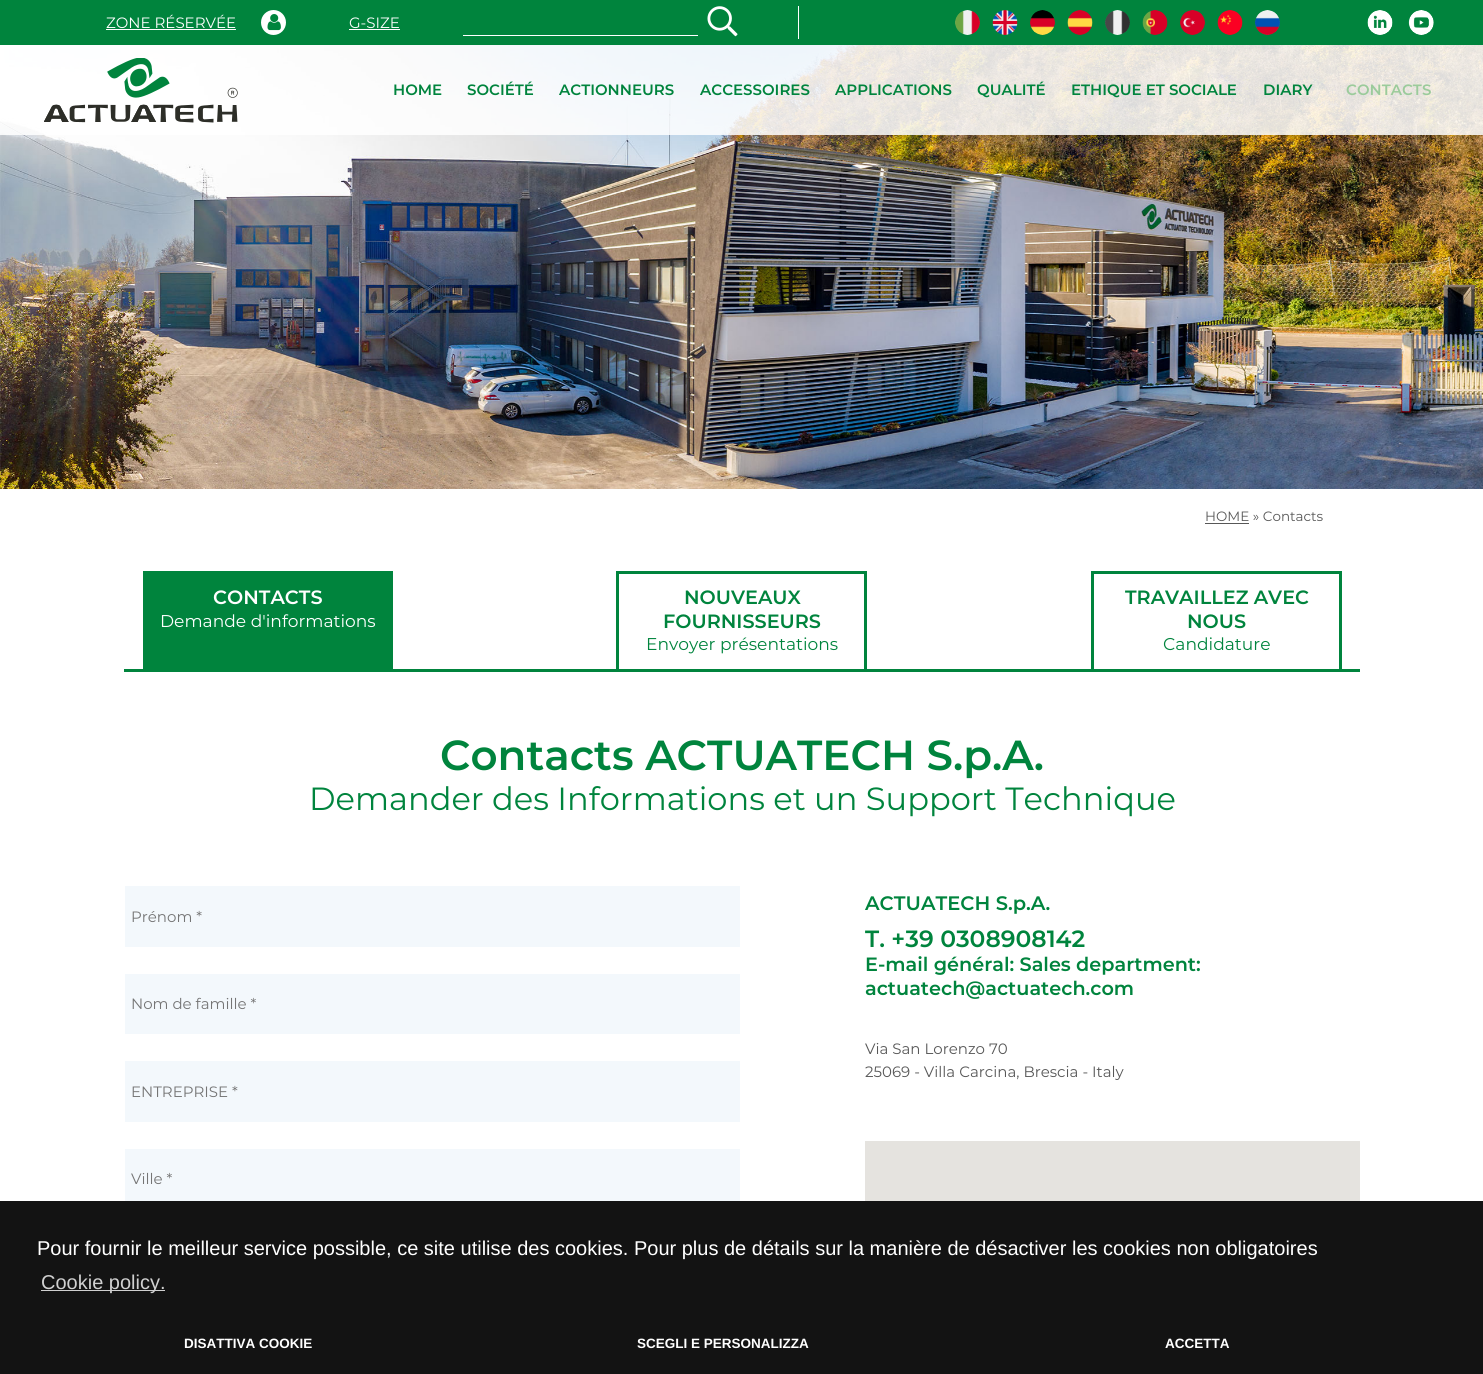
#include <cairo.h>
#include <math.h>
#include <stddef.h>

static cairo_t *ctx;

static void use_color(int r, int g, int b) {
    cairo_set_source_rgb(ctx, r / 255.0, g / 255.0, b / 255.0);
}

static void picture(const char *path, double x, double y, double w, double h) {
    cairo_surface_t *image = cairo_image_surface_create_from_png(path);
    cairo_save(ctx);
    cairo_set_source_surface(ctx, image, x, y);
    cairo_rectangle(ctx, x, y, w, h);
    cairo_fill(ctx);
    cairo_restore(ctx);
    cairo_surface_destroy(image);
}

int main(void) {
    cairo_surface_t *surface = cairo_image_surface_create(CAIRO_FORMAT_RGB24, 1483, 1374);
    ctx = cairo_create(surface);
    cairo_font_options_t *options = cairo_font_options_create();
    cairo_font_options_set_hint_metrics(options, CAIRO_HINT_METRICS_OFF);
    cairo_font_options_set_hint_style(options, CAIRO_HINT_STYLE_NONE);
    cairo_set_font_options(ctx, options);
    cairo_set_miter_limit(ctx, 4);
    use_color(255, 255, 255);
    cairo_paint(ctx);
    picture("img15.png", 0, 45, 1483, 444);
    cairo_set_source_rgba(ctx, 1, 1, 1, 0.85);
    cairo_rectangle(ctx, 0, 45, 1483, 90);
    cairo_fill(ctx);
    use_color(0, 132, 61);
    cairo_rectangle(ctx, 0, 0, 1483, 45);
    cairo_fill(ctx);
    cairo_select_font_face(ctx, "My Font", CAIRO_FONT_SLANT_NORMAL, CAIRO_FONT_WEIGHT_NORMAL);
    cairo_set_font_size(ctx, 15);
    use_color(255, 255, 255);
    cairo_move_to(ctx, 106, 28);
    cairo_show_text(ctx, "ZONE RÉSERVÉE");
    cairo_rectangle(ctx, 106, 29, 130, 1);
    cairo_fill(ctx);
    cairo_arc(ctx, 273.5, 22.5, 12.5, 0, 2 * M_PI);
    cairo_fill(ctx);
    picture("img1.png", 267, 14, 14, 17);
    cairo_move_to(ctx, 349, 28);
    cairo_show_text(ctx, "G-SIZE");
    cairo_rectangle(ctx, 349, 29, 51, 1);
    cairo_fill(ctx);
    cairo_rectangle(ctx, 463, 35, 235, 1);
    cairo_fill(ctx);
    picture("img2.png", 707, 6, 31, 31);
    cairo_rectangle(ctx, 798, 6, 1, 33);
    cairo_fill(ctx);
    picture("img3.png", 955, 10, 25, 25);
    picture("img4.png", 992, 10, 26, 25);
    picture("img5.png", 1030, 10, 25, 25);
    picture("img6.png", 1067, 10, 26, 25);
    picture("img7.png", 1105, 10, 25, 25);
    picture("img8.png", 1142, 10, 26, 25);
    picture("img9.png", 1180, 10, 25, 25);
    picture("img10.png", 1217, 10, 26, 25);
    picture("img11.png", 1255, 10, 25, 25);
    picture("img12.png", 1367, 10, 26, 25);
    picture("img13.png", 1408, 10, 26, 25);
    picture("img14.png", 44, 58, 194, 65);
    cairo_select_font_face(ctx, "Montserrat SemiBold", CAIRO_FONT_SLANT_NORMAL, CAIRO_FONT_WEIGHT_NORMAL);
    use_color(0, 132, 61);
    cairo_move_to(ctx, 393, 95);
    cairo_show_text(ctx, "HOME");
    cairo_move_to(ctx, 467, 95);
    cairo_show_text(ctx, "SOCIÉTÉ");
    cairo_move_to(ctx, 559, 95);
    cairo_show_text(ctx, "ACTIONNEURS");
    cairo_move_to(ctx, 700, 95);
    cairo_show_text(ctx, "ACCESSOIRES");
    cairo_move_to(ctx, 835, 95);
    cairo_show_text(ctx, "APPLICATIONS");
    cairo_move_to(ctx, 977, 95);
    cairo_show_text(ctx, "QUALITÉ");
    cairo_move_to(ctx, 1071, 95);
    cairo_show_text(ctx, "ETHIQUE ET SOCIALE");
    cairo_move_to(ctx, 1263, 95);
    cairo_show_text(ctx, "DIARY");
    use_color(155, 203, 155);
    cairo_move_to(ctx, 1346, 95);
    cairo_show_text(ctx, "CONTACTS");
    cairo_select_font_face(ctx, "My Font", CAIRO_FONT_SLANT_NORMAL, CAIRO_FONT_WEIGHT_NORMAL);
    cairo_set_font_size(ctx, 13.5);
    use_color(87, 87, 87);
    cairo_move_to(ctx, 1205, 521);
    cairo_show_text(ctx, "HOME » Contacts");
    cairo_rectangle(ctx, 1205, 523, 44, 1);
    cairo_fill(ctx);
    use_color(0, 132, 61);
    cairo_rectangle(ctx, 124, 669, 1236, 3);
    cairo_fill(ctx);
    cairo_rectangle(ctx, 143, 571, 250, 98);
    cairo_fill(ctx);
    cairo_select_font_face(ctx, "Montserrat SemiBold", CAIRO_FONT_SLANT_NORMAL, CAIRO_FONT_WEIGHT_NORMAL);
    cairo_set_font_size(ctx, 19.25);
    use_color(255, 255, 255);
    cairo_move_to(ctx, 213, 604);
    cairo_show_text(ctx, "CONTACTS");
    cairo_select_font_face(ctx, "My Font", CAIRO_FONT_SLANT_NORMAL, CAIRO_FONT_WEIGHT_NORMAL);
    cairo_set_font_size(ctx, 17.1);
    cairo_move_to(ctx, 160, 627);
    cairo_show_text(ctx, "Demande d'informations");
    use_color(0, 132, 61);
    cairo_rectangle(ctx, 616, 571, 250, 3);
    cairo_fill(ctx);
    cairo_rectangle(ctx, 864, 571, 3, 98);
    cairo_fill(ctx);
    cairo_rectangle(ctx, 616, 571, 3, 98);
    cairo_fill(ctx);
    cairo_select_font_face(ctx, "Montserrat SemiBold", CAIRO_FONT_SLANT_NORMAL, CAIRO_FONT_WEIGHT_NORMAL);
    cairo_set_font_size(ctx, 19.25);
    cairo_move_to(ctx, 684, 604);
    cairo_show_text(ctx, "NOUVEAUX");
    cairo_move_to(ctx, 663, 628);
    cairo_show_text(ctx, "FOURNISSEURS");
    cairo_select_font_face(ctx, "My Font", CAIRO_FONT_SLANT_NORMAL, CAIRO_FONT_WEIGHT_NORMAL);
    cairo_set_font_size(ctx, 17.1);
    cairo_move_to(ctx, 646, 650);
    cairo_show_text(ctx, "Envoyer présentations");
    cairo_rectangle(ctx, 1091, 571, 250, 3);
    cairo_fill(ctx);
    cairo_rectangle(ctx, 1339, 571, 3, 98);
    cairo_fill(ctx);
    cairo_rectangle(ctx, 1091, 571, 3, 98);
    cairo_fill(ctx);
    cairo_select_font_face(ctx, "Montserrat SemiBold", CAIRO_FONT_SLANT_NORMAL, CAIRO_FONT_WEIGHT_NORMAL);
    cairo_set_font_size(ctx, 19.25);
    cairo_move_to(ctx, 1125, 604);
    cairo_show_text(ctx, "TRAVAILLEZ AVEC");
    cairo_move_to(ctx, 1187, 628);
    cairo_show_text(ctx, "NOUS");
    cairo_select_font_face(ctx, "My Font", CAIRO_FONT_SLANT_NORMAL, CAIRO_FONT_WEIGHT_NORMAL);
    cairo_set_font_size(ctx, 17.1);
    cairo_move_to(ctx, 1163, 650);
    cairo_show_text(ctx, "Candidature");
    cairo_select_font_face(ctx, "Montserrat SemiBold", CAIRO_FONT_SLANT_NORMAL, CAIRO_FONT_WEIGHT_NORMAL);
    cairo_set_font_size(ctx, 42);
    cairo_move_to(ctx, 440, 770);
    cairo_show_text(ctx, "Contacts ACTUATECH S.p.A.");
    cairo_select_font_face(ctx, "My Font", CAIRO_FONT_SLANT_NORMAL, CAIRO_FONT_WEIGHT_NORMAL);
    cairo_set_font_size(ctx, 32.1);
    cairo_move_to(ctx, 309, 810);
    cairo_show_text(ctx, "Demander des Informations et un Support Technique");
    use_color(243, 248, 252);
    cairo_rectangle(ctx, 125, 886, 615, 61);
    cairo_fill(ctx);
    cairo_set_font_size(ctx, 15);
    use_color(117, 117, 117);
    cairo_move_to(ctx, 131, 922);
    cairo_show_text(ctx, "Prénom *");
    use_color(243, 248, 252);
    cairo_rectangle(ctx, 125, 974, 615, 60);
    cairo_fill(ctx);
    use_color(117, 117, 117);
    cairo_move_to(ctx, 131, 1009);
    cairo_show_text(ctx, "Nom de famille *");
    use_color(243, 248, 252);
    cairo_rectangle(ctx, 125, 1061, 615, 61);
    cairo_fill(ctx);
    use_color(117, 117, 117);
    cairo_move_to(ctx, 131, 1097);
    cairo_show_text(ctx, "ENTREPRISE *");
    use_color(243, 248, 252);
    cairo_rectangle(ctx, 125, 1149, 615, 52);
    cairo_fill(ctx);
    use_color(117, 117, 117);
    cairo_move_to(ctx, 131, 1184);
    cairo_show_text(ctx, "Ville *");
    cairo_select_font_face(ctx, "Montserrat SemiBold", CAIRO_FONT_SLANT_NORMAL, CAIRO_FONT_WEIGHT_NORMAL);
    cairo_set_font_size(ctx, 19.5);
    use_color(0, 132, 61);
    cairo_move_to(ctx, 865, 910);
    cairo_show_text(ctx, "ACTUATECH S.p.A.");
    cairo_set_font_size(ctx, 23.5);
    cairo_move_to(ctx, 865, 947);
    cairo_show_text(ctx, "T. +39 0308908142");
    cairo_set_font_size(ctx, 19.25);
    cairo_move_to(ctx, 865, 971);
    cairo_show_text(ctx, "E-mail général: Sales department:");
    cairo_move_to(ctx, 865, 995);
    cairo_show_text(ctx, "actuatech@actuatech.com");
    cairo_select_font_face(ctx, "My Font", CAIRO_FONT_SLANT_NORMAL, CAIRO_FONT_WEIGHT_NORMAL);
    cairo_set_font_size(ctx, 15);
    use_color(87, 87, 87);
    cairo_move_to(ctx, 865, 1054);
    cairo_show_text(ctx, "Via San Lorenzo 70");
    cairo_move_to(ctx, 865, 1077);
    cairo_show_text(ctx, "25069 - Villa Carcina, Brescia - Italy");
    use_color(229, 227, 223);
    cairo_rectangle(ctx, 865, 1141, 495, 60);
    cairo_fill(ctx);
    use_color(19, 19, 19);
    cairo_rectangle(ctx, 0, 1201, 1483, 173);
    cairo_fill(ctx);
    cairo_select_font_face(ctx, "Liberation Sans", CAIRO_FONT_SLANT_NORMAL, CAIRO_FONT_WEIGHT_NORMAL);
    cairo_set_font_size(ctx, 20);
    use_color(255, 255, 255);
    cairo_move_to(ctx, 37, 1255);
    cairo_show_text(ctx, "Pour fournir le meilleur service possible, ce site utilise des cookies. Pour plus de détails sur la manière de désactiver les cookies non obligatoires");
    use_color(208, 208, 208);
    cairo_rectangle(ctx, 41, 1290, 124, 1);
    cairo_fill(ctx);
    cairo_move_to(ctx, 41, 1289);
    cairo_show_text(ctx, "Cookie policy.");
    cairo_select_font_face(ctx, "Liberation Sans", CAIRO_FONT_SLANT_NORMAL, CAIRO_FONT_WEIGHT_BOLD);
    cairo_set_font_size(ctx, 13.5);
    use_color(255, 255, 255);
    cairo_move_to(ctx, 184, 1348);
    cairo_show_text(ctx, "DISATTIVA COOKIE");
    cairo_move_to(ctx, 637, 1348);
    cairo_show_text(ctx, "SCEGLI E PERSONALIZZA");
    cairo_move_to(ctx, 1165, 1348);
    cairo_show_text(ctx, "ACCETTA");
    cairo_surface_write_to_png(surface, "result.png");
    cairo_font_options_destroy(options);
    cairo_destroy(ctx);
    cairo_surface_destroy(surface);
    return 0;
}
